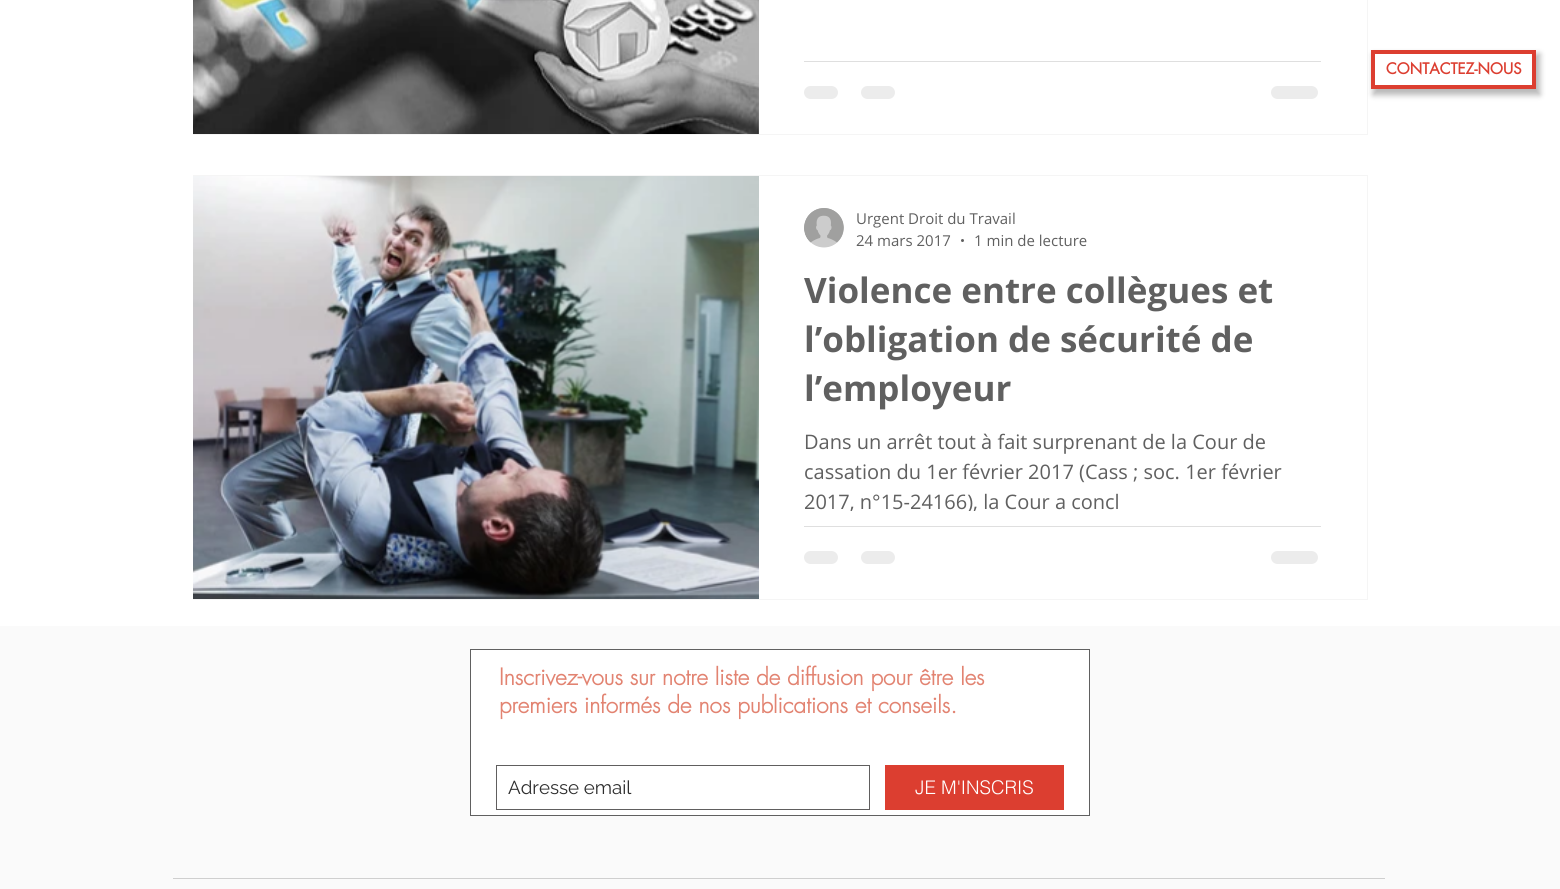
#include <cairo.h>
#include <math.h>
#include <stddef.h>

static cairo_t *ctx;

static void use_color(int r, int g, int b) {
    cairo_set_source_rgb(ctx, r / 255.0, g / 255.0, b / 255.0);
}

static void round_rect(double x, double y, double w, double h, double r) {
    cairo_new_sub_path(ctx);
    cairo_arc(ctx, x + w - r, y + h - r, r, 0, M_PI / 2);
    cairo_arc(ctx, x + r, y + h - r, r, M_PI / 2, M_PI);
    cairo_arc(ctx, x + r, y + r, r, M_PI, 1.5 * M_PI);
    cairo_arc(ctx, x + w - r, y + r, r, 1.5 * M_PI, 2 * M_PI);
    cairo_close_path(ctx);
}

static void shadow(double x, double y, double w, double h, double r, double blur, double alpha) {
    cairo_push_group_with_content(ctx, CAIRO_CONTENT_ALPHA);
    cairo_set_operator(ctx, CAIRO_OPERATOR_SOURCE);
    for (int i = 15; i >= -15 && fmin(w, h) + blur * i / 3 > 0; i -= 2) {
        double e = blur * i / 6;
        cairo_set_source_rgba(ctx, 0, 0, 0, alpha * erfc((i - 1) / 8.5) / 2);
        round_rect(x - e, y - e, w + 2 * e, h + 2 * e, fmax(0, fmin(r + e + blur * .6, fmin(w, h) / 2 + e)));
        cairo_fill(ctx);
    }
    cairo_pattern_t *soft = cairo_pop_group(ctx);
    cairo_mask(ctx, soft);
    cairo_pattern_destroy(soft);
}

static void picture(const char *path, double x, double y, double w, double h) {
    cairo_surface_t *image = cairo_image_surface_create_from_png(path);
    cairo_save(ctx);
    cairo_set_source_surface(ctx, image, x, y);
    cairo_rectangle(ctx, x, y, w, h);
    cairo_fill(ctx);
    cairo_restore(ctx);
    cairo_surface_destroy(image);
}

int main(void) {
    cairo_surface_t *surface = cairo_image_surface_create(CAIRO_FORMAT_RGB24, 1560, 889);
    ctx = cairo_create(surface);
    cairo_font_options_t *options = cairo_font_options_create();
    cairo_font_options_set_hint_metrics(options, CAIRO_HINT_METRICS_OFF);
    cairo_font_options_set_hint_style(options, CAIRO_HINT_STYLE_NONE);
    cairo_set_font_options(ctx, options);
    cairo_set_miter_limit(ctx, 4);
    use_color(255, 255, 255);
    cairo_paint(ctx);
    cairo_rectangle(ctx, 193.5, -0.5, 1174, 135);
    use_color(245, 245, 245);
    cairo_set_line_width(ctx, 1);
    cairo_stroke(ctx);
    use_color(0, 0, 0);
    shadow(1373, 54, 167, 41, 0, 3, 0.28);
    use_color(255, 255, 255);
    cairo_rectangle(ctx, 1373, 52, 161, 35);
    cairo_fill_preserve(ctx);
    use_color(220, 62, 48);
    cairo_set_line_width(ctx, 4);
    cairo_stroke(ctx);
    cairo_select_font_face(ctx, "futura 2", CAIRO_FONT_SLANT_NORMAL, CAIRO_FONT_WEIGHT_BOLD);
    cairo_set_font_size(ctx, 15);
    cairo_move_to(ctx, 1386, 74);
    cairo_show_text(ctx, "CONTACTEZ-NOUS");
    picture("img1.png", 193, 0, 566, 134);
    use_color(223, 223, 223);
    cairo_rectangle(ctx, 804, 61, 517, 1);
    cairo_fill(ctx);
    use_color(236, 236, 236);
    round_rect(804, 86, 34, 13, 6.5);
    cairo_fill(ctx);
    round_rect(861, 86, 34, 13, 6.5);
    cairo_fill(ctx);
    round_rect(1271, 86, 47, 13, 6.5);
    cairo_fill(ctx);
    cairo_rectangle(ctx, 193.5, 175.5, 1174, 424);
    use_color(245, 245, 245);
    cairo_set_line_width(ctx, 1);
    cairo_stroke(ctx);
    picture("img2.png", 193, 176, 566, 423);
    picture("img3.png", 804, 208, 40, 40);
    cairo_select_font_face(ctx, "Open Sans", CAIRO_FONT_SLANT_NORMAL, CAIRO_FONT_WEIGHT_NORMAL);
    use_color(96, 96, 96);
    cairo_move_to(ctx, 856, 224);
    cairo_show_text(ctx, "Urgent Droit du Travail");
    cairo_move_to(ctx, 856, 246);
    cairo_show_text(ctx, "24 mars 2017");
    cairo_new_path(ctx);
    cairo_arc(ctx, 962.5, 240.5, 1.5, 0, 2 * M_PI);
    cairo_fill(ctx);
    cairo_move_to(ctx, 974, 246);
    cairo_show_text(ctx, "1 min de lecture");
    cairo_select_font_face(ctx, "Open Sans", CAIRO_FONT_SLANT_NORMAL, CAIRO_FONT_WEIGHT_BOLD);
    cairo_set_font_size(ctx, 35);
    cairo_move_to(ctx, 804, 303);
    cairo_show_text(ctx, "Violence entre collègues et");
    cairo_move_to(ctx, 804, 352);
    cairo_show_text(ctx, "l’obligation de sécurité de");
    cairo_move_to(ctx, 804, 401);
    cairo_show_text(ctx, "l’employeur");
    cairo_select_font_face(ctx, "Open Sans", CAIRO_FONT_SLANT_NORMAL, CAIRO_FONT_WEIGHT_NORMAL);
    cairo_set_font_size(ctx, 20);
    cairo_move_to(ctx, 804, 449);
    cairo_show_text(ctx, "Dans un arrêt tout à fait surprenant de la Cour de");
    cairo_move_to(ctx, 804, 479);
    cairo_show_text(ctx, "cassation du 1er février 2017 (Cass ; soc. 1er février");
    cairo_save(ctx);
    cairo_rectangle(ctx, 804, 428, 517, 83);
    cairo_clip(ctx);
    cairo_move_to(ctx, 804, 509);
    cairo_show_text(ctx, "2017, n°15-24166), la Cour a concl");
    cairo_restore(ctx);
    use_color(223, 223, 223);
    cairo_rectangle(ctx, 804, 526, 517, 1);
    cairo_fill(ctx);
    use_color(236, 236, 236);
    round_rect(804, 551, 34, 13, 6.5);
    cairo_fill(ctx);
    round_rect(861, 551, 34, 13, 6.5);
    cairo_fill(ctx);
    round_rect(1271, 551, 47, 13, 6.5);
    cairo_fill(ctx);
    use_color(250, 250, 250);
    cairo_rectangle(ctx, 0, 626, 1560, 263);
    cairo_fill(ctx);
    use_color(255, 255, 255);
    cairo_rectangle(ctx, 470.5, 649.5, 619, 166);
    cairo_fill_preserve(ctx);
    use_color(96, 96, 96);
    cairo_stroke(ctx);
    cairo_select_font_face(ctx, "futura", CAIRO_FONT_SLANT_NORMAL, CAIRO_FONT_WEIGHT_BOLD);
    cairo_set_font_size(ctx, 22.5);
    use_color(226, 131, 113);
    cairo_move_to(ctx, 499, 685);
    cairo_show_text(ctx, "Inscrivez-vous sur notre liste de diffusion pour être les");
    cairo_move_to(ctx, 499, 713);
    cairo_show_text(ctx, "premiers informés de nos publications et conseils.");
    cairo_rectangle(ctx, 496.5, 765.5, 373, 44);
    use_color(96, 94, 94);
    cairo_stroke(ctx);
    cairo_select_font_face(ctx, "Raleway", CAIRO_FONT_SLANT_NORMAL, CAIRO_FONT_WEIGHT_NORMAL);
    cairo_set_font_size(ctx, 18.75);
    use_color(45, 45, 45);
    cairo_move_to(ctx, 508, 794);
    cairo_show_text(ctx, "Adresse email");
    use_color(220, 62, 48);
    cairo_rectangle(ctx, 885, 765, 179, 45);
    cairo_fill(ctx);
    cairo_select_font_face(ctx, "helvetica Light", CAIRO_FONT_SLANT_NORMAL, CAIRO_FONT_WEIGHT_NORMAL);
    use_color(255, 255, 255);
    cairo_move_to(ctx, 915, 794);
    cairo_show_text(ctx, "JE M'INSCRIS");
    use_color(207, 207, 207);
    cairo_rectangle(ctx, 173, 878, 1212, 1);
    cairo_fill(ctx);
    cairo_surface_write_to_png(surface, "result.png");
    cairo_font_options_destroy(options);
    cairo_destroy(ctx);
    cairo_surface_destroy(surface);
    return 0;
}
